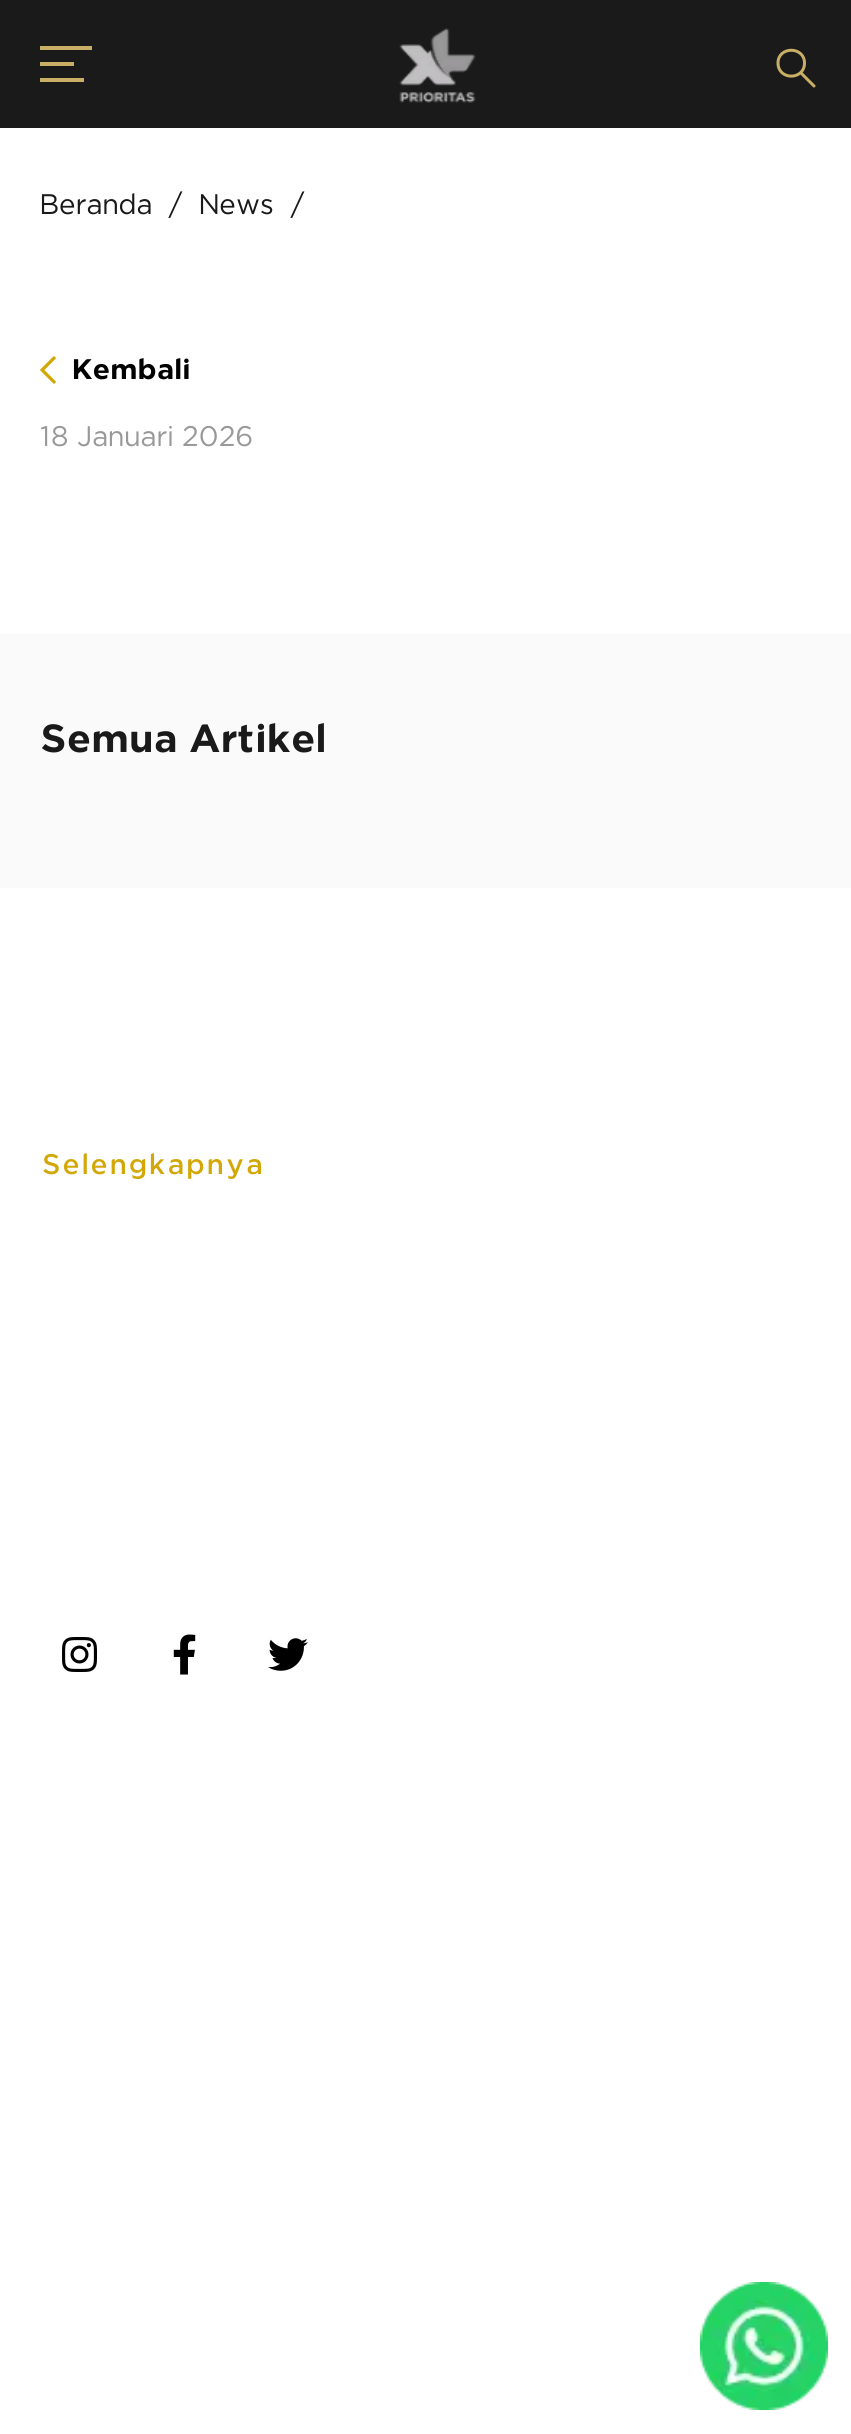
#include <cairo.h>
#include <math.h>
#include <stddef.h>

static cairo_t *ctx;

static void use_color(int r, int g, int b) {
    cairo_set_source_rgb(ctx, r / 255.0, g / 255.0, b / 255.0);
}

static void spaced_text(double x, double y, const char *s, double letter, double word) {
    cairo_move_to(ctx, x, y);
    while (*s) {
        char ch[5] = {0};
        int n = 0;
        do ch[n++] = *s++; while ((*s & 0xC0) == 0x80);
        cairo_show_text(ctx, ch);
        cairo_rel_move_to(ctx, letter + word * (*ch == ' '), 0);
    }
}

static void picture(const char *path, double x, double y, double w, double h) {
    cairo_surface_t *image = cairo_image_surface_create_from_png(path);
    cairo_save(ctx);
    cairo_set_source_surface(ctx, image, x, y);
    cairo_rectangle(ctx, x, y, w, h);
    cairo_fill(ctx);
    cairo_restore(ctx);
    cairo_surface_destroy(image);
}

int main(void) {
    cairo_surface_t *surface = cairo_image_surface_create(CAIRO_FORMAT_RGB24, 851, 2434);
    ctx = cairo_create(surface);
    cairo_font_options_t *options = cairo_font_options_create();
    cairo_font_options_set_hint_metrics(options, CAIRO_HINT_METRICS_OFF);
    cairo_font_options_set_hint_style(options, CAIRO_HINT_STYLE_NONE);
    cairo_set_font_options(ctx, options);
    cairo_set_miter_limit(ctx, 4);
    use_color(255, 255, 255);
    cairo_paint(ctx);
    use_color(26, 26, 26);
    cairo_rectangle(ctx, 0, 0, 851, 128);
    cairo_fill(ctx);
    use_color(200, 175, 101);
    cairo_rectangle(ctx, 40, 46, 52, 4);
    cairo_fill(ctx);
    cairo_rectangle(ctx, 40, 62, 34, 4);
    cairo_fill(ctx);
    cairo_rectangle(ctx, 40, 78, 44, 4);
    cairo_fill(ctx);
    picture("img1.png", 399, 28, 77, 75);
    cairo_new_path(ctx);
    cairo_move_to(ctx, 804.5, 63);
    cairo_curve_to(ctx, 804.5, 80.5, 778, 80.5, 778, 63);
    cairo_curve_to(ctx, 778, 46, 804.5, 46, 804.5, 63);
    cairo_close_path(ctx);
    cairo_move_to(ctx, 802, 74);
    cairo_line_to(ctx, 814, 86);
    cairo_set_line_width(ctx, 3);
    cairo_set_line_cap(ctx, CAIRO_LINE_CAP_ROUND);
    cairo_set_line_join(ctx, CAIRO_LINE_JOIN_ROUND);
    cairo_stroke(ctx);
    cairo_select_font_face(ctx, "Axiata", CAIRO_FONT_SLANT_NORMAL, CAIRO_FONT_WEIGHT_NORMAL);
    cairo_set_font_size(ctx, 28);
    use_color(26, 26, 26);
    cairo_move_to(ctx, 40, 214);
    cairo_show_text(ctx, "Beranda");
    cairo_move_to(ctx, 168, 214);
    cairo_show_text(ctx, "/");
    cairo_move_to(ctx, 199, 214);
    cairo_show_text(ctx, "News");
    cairo_move_to(ctx, 290, 214);
    cairo_show_text(ctx, "/");
    picture("img2.png", 40, 356, 16, 28);
    cairo_select_font_face(ctx, "Axiata", CAIRO_FONT_SLANT_NORMAL, CAIRO_FONT_WEIGHT_BOLD);
    use_color(0, 0, 0);
    cairo_move_to(ctx, 72, 379);
    cairo_show_text(ctx, "Kembali");
    cairo_select_font_face(ctx, "Axiata", CAIRO_FONT_SLANT_NORMAL, CAIRO_FONT_WEIGHT_NORMAL);
    use_color(153, 153, 153);
    cairo_move_to(ctx, 40, 446);
    cairo_show_text(ctx, "18 Januari 2026");
    use_color(250, 250, 250);
    cairo_rectangle(ctx, 0, 634, 851, 254);
    cairo_fill(ctx);
    cairo_select_font_face(ctx, "Axiata", CAIRO_FONT_SLANT_NORMAL, CAIRO_FONT_WEIGHT_BOLD);
    cairo_set_font_size(ctx, 38.75);
    use_color(26, 26, 26);
    cairo_move_to(ctx, 40, 752);
    cairo_show_text(ctx, "Semua Artikel");
    cairo_select_font_face(ctx, "Axiata Medium", CAIRO_FONT_SLANT_NORMAL, CAIRO_FONT_WEIGHT_NORMAL);
    cairo_set_font_size(ctx, 28);
    use_color(210, 167, 6);
    spaced_text(42, 1174, "Selengkapnya", 2, 0);
    picture("img3.png", 62, 1637, 35, 35);
    picture("img4.png", 173, 1634, 23, 41);
    picture("img5.png", 268, 1638, 40, 33);
    picture("img6.png", 700, 2282, 128, 128);
    cairo_surface_write_to_png(surface, "result.png");
    cairo_font_options_destroy(options);
    cairo_destroy(ctx);
    cairo_surface_destroy(surface);
    return 0;
}
